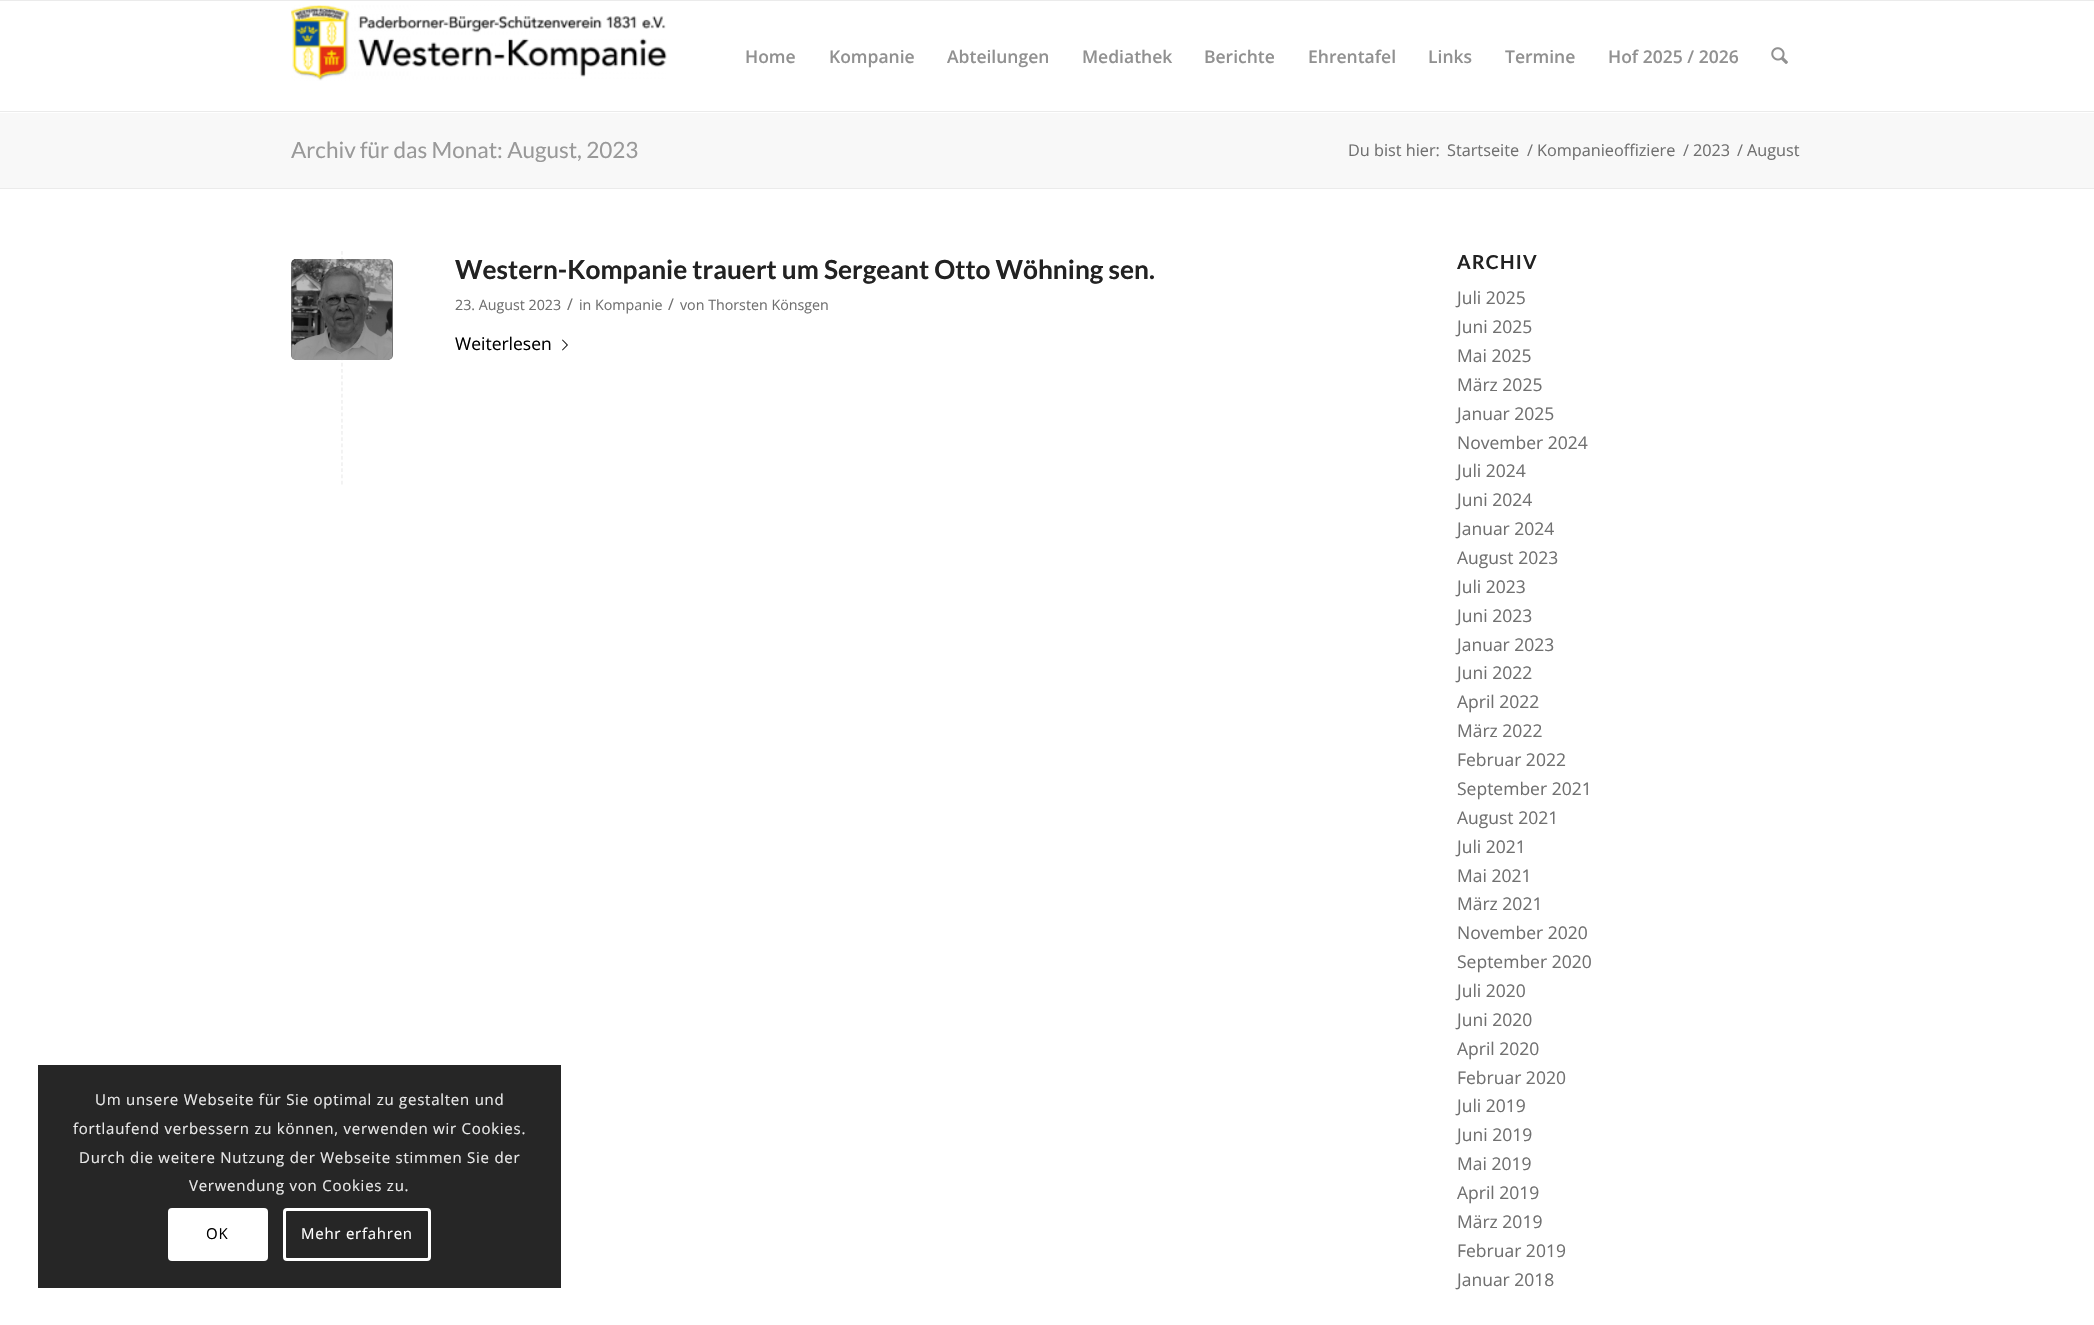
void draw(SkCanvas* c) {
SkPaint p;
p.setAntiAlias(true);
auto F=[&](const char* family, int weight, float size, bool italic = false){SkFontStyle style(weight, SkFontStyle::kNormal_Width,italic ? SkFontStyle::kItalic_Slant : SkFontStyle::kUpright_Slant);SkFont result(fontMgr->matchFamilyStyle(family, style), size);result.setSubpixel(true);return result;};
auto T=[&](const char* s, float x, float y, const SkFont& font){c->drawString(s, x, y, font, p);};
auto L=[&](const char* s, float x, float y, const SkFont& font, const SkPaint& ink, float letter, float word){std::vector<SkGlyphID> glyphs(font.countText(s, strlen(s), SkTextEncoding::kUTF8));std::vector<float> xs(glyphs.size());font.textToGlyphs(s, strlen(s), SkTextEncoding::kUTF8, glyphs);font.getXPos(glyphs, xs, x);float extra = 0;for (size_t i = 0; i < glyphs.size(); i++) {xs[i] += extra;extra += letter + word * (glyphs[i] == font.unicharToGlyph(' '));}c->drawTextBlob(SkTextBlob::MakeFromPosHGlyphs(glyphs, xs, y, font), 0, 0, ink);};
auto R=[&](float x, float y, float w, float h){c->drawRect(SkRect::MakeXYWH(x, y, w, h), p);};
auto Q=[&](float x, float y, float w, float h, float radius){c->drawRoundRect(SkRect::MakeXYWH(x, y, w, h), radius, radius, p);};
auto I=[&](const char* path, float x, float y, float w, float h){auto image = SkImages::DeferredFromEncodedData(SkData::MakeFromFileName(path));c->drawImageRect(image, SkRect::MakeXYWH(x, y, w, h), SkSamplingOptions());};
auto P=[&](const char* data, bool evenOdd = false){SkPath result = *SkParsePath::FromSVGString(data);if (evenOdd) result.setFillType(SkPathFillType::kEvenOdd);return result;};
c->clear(0xffffffff);
p.setColor(0xffebebeb);
R(0,0,2094,1);
R(0,111,2094,1);
I("1.png",291,5,376,76);
auto f1 = F("Open Sans",600,17.5);
p.setColor(0xff919191);
T("Home",745,63,f1);
T("Kompanie",829,63,f1);
T("Abteilungen",947,63,f1);
T("Mediathek",1082,63,f1);
T("Berichte",1204,63,f1);
T("Ehrentafel",1308,63,f1);
T("Links",1428,63,f1);
T("Termine",1505,63,f1);
T("Hof 2025 / 2026",1608,63,f1);
I("2.png",1771,47,17,17);
p.setColor(0xfff8f8f8);
R(0,113,2094,75);
auto f2 = F("Lato",400,22.5);
p.setColor(0xff999999);
T("Archiv für das Monat: August, 2023",291,158,f2);
auto f3 = F("Open Sans",400,16.25);
p.setColor(0xff707070);
T("Du bist hier:",1348,156,f3);
T("Startseite",1447,156,f3);
T("/",1527,156,f3);
T("Kompanieoffiziere",1537,156,f3);
T("/",1683,156,f3);
T("2023",1693,156,f3);
T("/",1737,156,f3);
T("August",1747,156,f3);
p.setColor(0xffebebeb);
R(0,188,2094,1);
p.setStroke(true);
p.setStrokeWidth(1.2);
p.setPathEffect(SkDashPathEffect::Make({{3.75f,2.46f}}, 0));
c->drawPath(P("M342 251v234"),p);
p.setPathEffect(nullptr);
p.setStroke(false);
p.setColor(0xff707070);
Q(291,259,102,101,5);
I("3.png",291,259,102,101);
auto f4 = F("Lato",700,26.25);
p.setColor(0xff222222);
T("Western-Kompanie trauert um Sergeant Otto Wöhning sen.",455,279,f4);
auto f5 = F("Open Sans",400,14.25);
p.setColor(0xff707070);
T("23. August 2023",455,310,f5);
auto f6 = F("Open Sans",400,16);
T("/",567,310,f6);
T("in Kompanie",579,310,f5);
T("/",668,310,f6);
T("von Thorsten Könsgen",680,310,f5);
auto f7 = F("Open Sans",400,17.5);
p.setColor(0xff000000);
T("Weiterlesen",455,350,f7);
I("4.png",562,339,6,12);
auto f8 = F("Lato",700,19.25);
p.setColor(0xff222222);
L("ARCHIV",1457,269,f8,p,1.25,0);
p.setColor(0xff707070);
T("Juli 2025",1457,304,f7);
T("Juni 2025",1457,333,f7);
T("Mai 2025",1457,362,f7);
T("März 2025",1457,391,f7);
T("Januar 2025",1457,420,f7);
T("November 2024",1457,449,f7);
T("Juli 2024",1457,477,f7);
T("Juni 2024",1457,506,f7);
T("Januar 2024",1457,535,f7);
T("August 2023",1457,564,f7);
T("Juli 2023",1457,593,f7);
T("Juni 2023",1457,622,f7);
T("Januar 2023",1457,651,f7);
T("Juni 2022",1457,679,f7);
T("April 2022",1457,708,f7);
T("März 2022",1457,737,f7);
T("Februar 2022",1457,766,f7);
T("September 2021",1457,795,f7);
T("August 2021",1457,824,f7);
T("Juli 2021",1457,853,f7);
T("Mai 2021",1457,882,f7);
T("März 2021",1457,910,f7);
T("November 2020",1457,939,f7);
T("September 2020",1457,968,f7);
T("Juli 2020",1457,997,f7);
T("Juni 2020",1457,1026,f7);
T("April 2020",1457,1055,f7);
T("Februar 2020",1457,1084,f7);
T("Juli 2019",1457,1112,f7);
T("Juni 2019",1457,1141,f7);
T("Mai 2019",1457,1170,f7);
T("April 2019",1457,1199,f7);
T("März 2019",1457,1228,f7);
T("Februar 2019",1457,1257,f7);
T("Januar 2018",1457,1286,f7);
p.setColor(0xff262626);
R(38,1065,523,223);
auto f9 = F("Open Sans",400,15);
p.setColor(0xffe9e9e9);
L("Um unsere Webseite für Sie optimal zu gestalten und",95,1105,f9,p,.75,0);
L("fortlaufend verbessern zu können, verwenden wir Cookies.",73,1134,f9,p,.75,0);
L("Durch die weitere Nutzung der Webseite stimmen Sie der",79,1163,f9,p,.75,0);
L("Verwendung von Cookies zu.",189,1191,f9,p,.75,0);
p.setColor(0xffffffff);
Q(168,1208,100,53,4);
p.setColor(0xff000000);
L("OK",206,1239,f9,p,.75,0);
p.setStroke(true);
p.setStrokeWidth(3);
p.setColor(0xffffffff);
c->drawRoundRect(SkRect::MakeXYWH(284.5,1209.5,145,50),2.5,2.5,p);
p.setStroke(false);
L("Mehr erfahren",301,1239,f9,p,.75,0);
}
